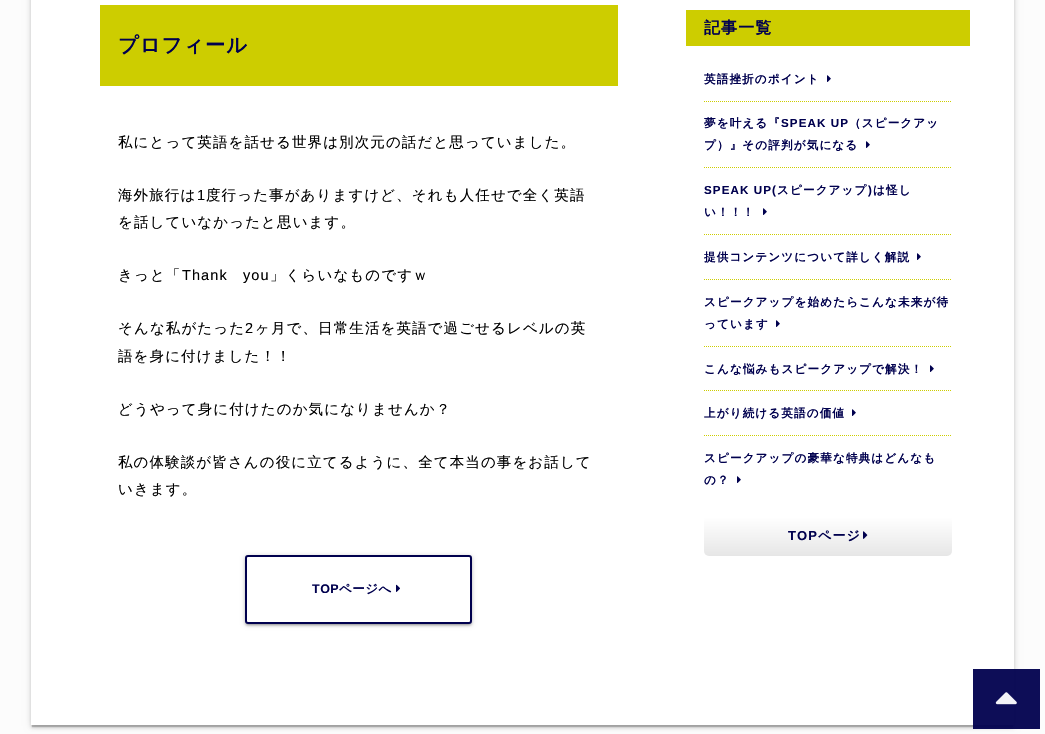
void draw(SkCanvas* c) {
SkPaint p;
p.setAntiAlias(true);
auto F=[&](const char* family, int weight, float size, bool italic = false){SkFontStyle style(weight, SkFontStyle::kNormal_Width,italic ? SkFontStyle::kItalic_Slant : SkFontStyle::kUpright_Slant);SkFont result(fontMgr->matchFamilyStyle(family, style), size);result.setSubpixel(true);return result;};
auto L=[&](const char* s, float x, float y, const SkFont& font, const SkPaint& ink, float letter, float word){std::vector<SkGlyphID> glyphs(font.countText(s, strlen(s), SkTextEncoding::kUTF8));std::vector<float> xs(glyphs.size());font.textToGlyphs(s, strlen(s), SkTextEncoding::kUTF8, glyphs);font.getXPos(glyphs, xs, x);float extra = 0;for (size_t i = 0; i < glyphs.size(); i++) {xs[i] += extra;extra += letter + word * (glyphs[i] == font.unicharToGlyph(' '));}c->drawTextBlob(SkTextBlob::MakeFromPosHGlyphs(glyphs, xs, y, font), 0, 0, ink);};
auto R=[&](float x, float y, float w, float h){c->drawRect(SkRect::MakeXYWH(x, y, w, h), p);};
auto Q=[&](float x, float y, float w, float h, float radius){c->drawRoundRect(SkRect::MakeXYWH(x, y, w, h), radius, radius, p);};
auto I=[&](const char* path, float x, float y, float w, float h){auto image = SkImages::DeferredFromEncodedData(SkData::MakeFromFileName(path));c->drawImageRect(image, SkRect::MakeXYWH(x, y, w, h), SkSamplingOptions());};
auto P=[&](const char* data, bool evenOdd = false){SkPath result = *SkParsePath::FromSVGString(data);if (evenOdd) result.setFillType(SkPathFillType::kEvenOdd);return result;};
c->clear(0xfffcfcfc);
p.setColor(0x33000000);
p.setMaskFilter(SkMaskFilter::MakeBlur(kNormal_SkBlurStyle, .5));
c->drawRect(SkRect::MakeXYWH(32,-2,981,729),p);
p.setMaskFilter(nullptr);
p.setColor(0x1f000000);
p.setMaskFilter(SkMaskFilter::MakeBlur(kNormal_SkBlurStyle, 3.5));
c->drawRect(SkRect::MakeXYWH(31,-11,983,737),p);
p.setMaskFilter(nullptr);
p.setColor(0x24000000);
p.setMaskFilter(SkMaskFilter::MakeBlur(kNormal_SkBlurStyle, 1.5));
c->drawRect(SkRect::MakeXYWH(31,-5,983,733),p);
p.setMaskFilter(nullptr);
p.setColor(0xffffffff);
R(31,0,983,725);
p.setColor(0xffcdcd00);
R(100,5,518,81);
auto f1 = F("WenQuanYi Zen Hei",700,20.25);
p.setColor(0xff00004e);
L("プロフィール",118,52,f1,p,1,0);
auto f2 = F("WenQuanYi Zen Hei",500,14.5);
p.setColor(0xff000000);
L("私にとって英語を話せる世界は別次元の話だと思っていました。",118,147,f2,p,1.1,0);
L("海外旅行は",118,200,f2,p,1.1,0);
auto f3 = F("Liberation Sans",400,14.5);
L("1",197,200,f3,p,1.1,0);
L("度行った事がありますけど、それも人任せで全く英語",206,200,f2,p,1.1,0);
L("を話していなかったと思います。",118,227,f2,p,1.1,0);
L("きっと「",118,280,f2,p,1.1,0);
L("Thank",182,280,f3,p,1.1,0);
L("you",243,280,f3,p,1.1,0);
L("」くらいなものですｗ",270,280,f2,p,1.1,0);
L("そんな私がたった",118,333,f2,p,1.1,0);
L("2",245,333,f3,p,1.1,0);
L("ヶ月で、日常生活を英語で過ごせるレベルの英",255,333,f2,p,1.1,0);
L("語を身に付けました！！",118,361,f2,p,1.1,0);
L("どうやって身に付けたのか気になりませんか？",118,414,f2,p,1.1,0);
L("私の体験談が皆さんの役に立てるように、全て本当の事をお話して",118,467,f2,p,1.1,0);
L("いきます。",118,494,f2,p,1.1,0);
p.setColor(0x33000000);
p.setMaskFilter(SkMaskFilter::MakeBlur(kNormal_SkBlurStyle, 2.5));
c->drawRoundRect(SkRect::MakeXYWH(245,556,227,69),3,3,p);
p.setMaskFilter(nullptr);
p.setColor(0x1f000000);
p.setMaskFilter(SkMaskFilter::MakeBlur(kNormal_SkBlurStyle, .5));
c->drawRoundRect(SkRect::MakeXYWH(247,560,223,65),1,1,p);
p.setMaskFilter(nullptr);
p.setColor(0x24000000);
p.setMaskFilter(SkMaskFilter::MakeBlur(kNormal_SkBlurStyle, 1));
c->drawRoundRect(SkRect::MakeXYWH(245,557,227,69),3,3,p);
p.setMaskFilter(nullptr);
p.setColor(0xffffffff);
c->drawRoundRect(SkRect::MakeXYWH(246,556,225,67),2,2,p);
p.setStroke(true);
p.setStrokeWidth(2);
p.setColor(0xff00004e);
c->drawRoundRect(SkRect::MakeXYWH(246,556,225,67),2,2,p);
auto f4 = F("Liberation Sans",700,12.5);
p.setStroke(false);
L("TOP",312,593,f4,p,.5,0);
auto f5 = F("WenQuanYi Zen Hei",700,12.5);
L("ページへ",339,593,f5,p,.5,0);
I("1.png",396,584,4,8);
p.setColor(0xffcdcd00);
R(686,10,284,36);
auto f6 = F("WenQuanYi Zen Hei",700,16);
p.setColor(0xff00004e);
L("記事一覧",704,33,f6,p,1.1,0);
p.setStroke(true);
p.setStrokeWidth(1);
p.setColor(0xffcdcd00);
p.setPathEffect(SkDashPathEffect::Make({{1,1}}, 0));
c->drawPath(P("M704 101.5h248"),p);
p.setPathEffect(nullptr);
auto f7 = F("WenQuanYi Zen Hei",700,11.6);
p.setStroke(false);
p.setColor(0xff00004e);
L("英語挫折のポイント",704,83,f7,p,1.1,0);
I("2.png",827,75,4,7);
p.setStroke(true);
p.setColor(0xffcdcd00);
p.setPathEffect(SkDashPathEffect::Make({{1,1}}, 0));
c->drawPath(P("M704 167.5h248"),p);
p.setPathEffect(nullptr);
p.setStroke(false);
p.setColor(0xff00004e);
L("夢を叶える『",704,127,f7,p,1.1,0);
auto f8 = F("Liberation Sans",700,11.6);
L("SPEAK UP",781,127,f8,p,1.1,0);
L("（スピークアッ",849,127,f7,p,1.1,0);
L("プ）』その評判が気になる",704,149,f7,p,1.1,0);
I("2.png",866,141,4,7);
p.setStroke(true);
p.setColor(0xffcdcd00);
p.setPathEffect(SkDashPathEffect::Make({{1,1}}, 0));
c->drawPath(P("M704 234.5h248"),p);
p.setPathEffect(nullptr);
p.setStroke(false);
p.setColor(0xff00004e);
L("SPEAK UP(",704,194,f8,p,1.1,0);
L("スピークアップ",777,194,f7,p,1.1,0);
L(")",868,194,f8,p,1.1,0);
L("は怪し",873,194,f7,p,1.1,0);
L("い！！！",704,216,f7,p,1.1,0);
I("2.png",763,208,4,7);
p.setStroke(true);
p.setColor(0xffcdcd00);
p.setPathEffect(SkDashPathEffect::Make({{1,1}}, 0));
c->drawPath(P("M704 279.5h248"),p);
p.setPathEffect(nullptr);
p.setStroke(false);
p.setColor(0xff00004e);
L("提供コンテンツについて詳しく解説",704,261,f7,p,1.1,0);
I("2.png",917,253,4,7);
p.setStroke(true);
p.setColor(0xffcdcd00);
p.setPathEffect(SkDashPathEffect::Make({{1,1}}, 0));
c->drawPath(P("M704 346.5h248"),p);
p.setPathEffect(nullptr);
p.setStroke(false);
p.setColor(0xff00004e);
L("スピークアップを始めたらこんな未来が待",704,306,f7,p,1.1,0);
L("っています",704,328,f7,p,1.1,0);
I("2.png",776,320,4,7);
p.setStroke(true);
p.setColor(0xffcdcd00);
p.setPathEffect(SkDashPathEffect::Make({{1,1}}, 0));
c->drawPath(P("M704 390.5h248"),p);
p.setPathEffect(nullptr);
p.setStroke(false);
p.setColor(0xff00004e);
L("こんな悩みもスピークアップで解決！",704,373,f7,p,1.1,0);
I("2.png",930,365,4,7);
p.setStroke(true);
p.setColor(0xffcdcd00);
p.setPathEffect(SkDashPathEffect::Make({{1,1}}, 0));
c->drawPath(P("M704 435.5h248"),p);
p.setPathEffect(nullptr);
p.setStroke(false);
p.setColor(0xff00004e);
L("上がり続ける英語の価値",704,417,f7,p,1.1,0);
I("2.png",852,409,4,7);
L("スピークアップの豪華な特典はどんなも",704,462,f7,p,1.1,0);
L("の？",704,484,f7,p,1.1,0);
I("2.png",737,476,4,7);
{
const SkColor colors[] = {0xffffffff,0xffe6e6e6};
const float stops[] = {0,1};
const SkPoint ends[] = {{828,517}, {828,556}};
p.setShader(SkGradientShader::MakeLinear(ends, colors, stops, 2, SkTileMode::kClamp));
p.setAlpha(255);
}
Q(704,517,248,39,5);
auto f9 = F("Liberation Sans",700,13);
p.setShader(nullptr);
p.setColor(0xff00004e);
L("TOP",788,540,f9,p,1.1,0);
auto f10 = F("WenQuanYi Zen Hei",700,13);
L("ページ",818,540,f10,p,1.1,0);
I("3.png",863,531,5,8);
p.setColor(0xf200004e);
R(973,669,67,60);
I("4.png",995,692,22,13);
}
